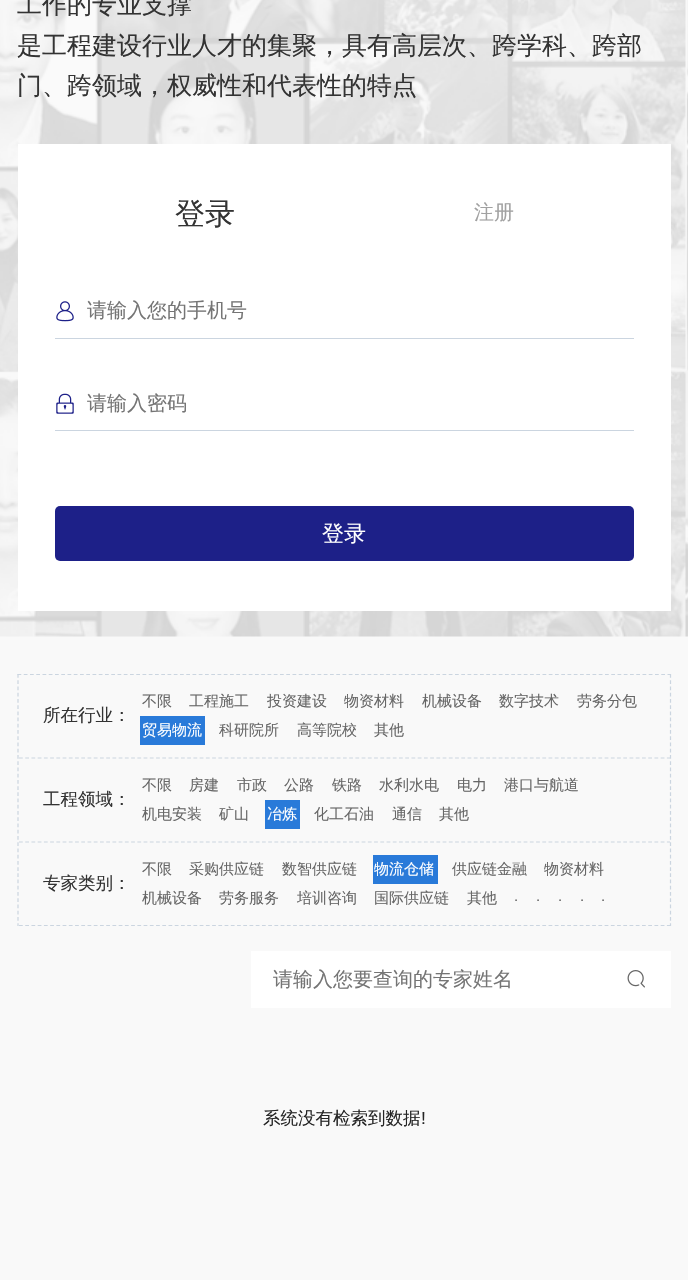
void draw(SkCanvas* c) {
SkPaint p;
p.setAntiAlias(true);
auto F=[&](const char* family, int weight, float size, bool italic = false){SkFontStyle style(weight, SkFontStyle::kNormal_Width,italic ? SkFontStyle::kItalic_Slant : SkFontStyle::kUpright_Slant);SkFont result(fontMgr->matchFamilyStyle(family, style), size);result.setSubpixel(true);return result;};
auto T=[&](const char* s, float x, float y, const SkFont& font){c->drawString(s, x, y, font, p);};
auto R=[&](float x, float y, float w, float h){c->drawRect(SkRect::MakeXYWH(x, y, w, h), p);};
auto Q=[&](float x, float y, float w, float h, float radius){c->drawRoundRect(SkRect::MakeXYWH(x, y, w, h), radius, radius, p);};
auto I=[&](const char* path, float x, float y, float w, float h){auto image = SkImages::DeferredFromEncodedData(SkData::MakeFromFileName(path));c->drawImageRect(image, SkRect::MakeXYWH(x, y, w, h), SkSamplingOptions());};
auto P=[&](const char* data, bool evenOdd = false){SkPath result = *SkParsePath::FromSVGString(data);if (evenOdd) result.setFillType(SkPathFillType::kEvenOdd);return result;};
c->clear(0xfff9f9f9);
I("1.png",0,0,688,637);
auto f1 = F("WenQuanYi Zen Hei",500,25);
p.setColor(0xff333333);
T("工作的专业支撑",17,13,f1);
T("是工程建设行业人才的集聚，具有高层次、跨学科、跨部",17,54,f1);
T("门、跨领域，权威性和代表性的特点",17,94,f1);
p.setColor(0xffffffff);
R(18,144,653,467);
auto f2 = F("WenQuanYi Zen Hei",500,30);
p.setColor(0xff333333);
T("登录",175,224,f2);
auto f3 = F("WenQuanYi Zen Hei",500,20);
p.setColor(0xffa1a1a1);
T("注册",474,219,f3);
p.setColor(0xffcbd5e0);
R(55,338,579,1);
I("2.png",56,301,18,21);
p.setColor(0xff757575);
T("请输入您的手机号",87,317,f3);
p.setColor(0xffcbd5e0);
R(55,430,579,1);
I("3.png",56,393,18,21);
p.setColor(0xff757575);
T("请输入密码",87,410,f3);
p.setColor(0xff1d2088);
Q(55,506,579,55,5);
auto f4 = F("WenQuanYi Zen Hei",500,22);
p.setColor(0xffffffff);
T("登录",322,541,f4);
p.setStroke(true);
p.setStrokeWidth(1.2);
p.setColor(0xffcbd5e0);
p.setPathEffect(SkDashPathEffect::Make({{3.75f,2.5f}}, 0));
c->drawPath(P("M17.5 674.5h653.5"),p);
p.setPathEffect(nullptr);
p.setPathEffect(SkDashPathEffect::Make({{3.75f,2.48f}}, 0));
c->drawPath(P("M670.5 674v252"),p);
p.setPathEffect(nullptr);
p.setPathEffect(SkDashPathEffect::Make({{3.75f,2.48f}}, 0));
c->drawPath(P("M18 674v252"),p);
p.setPathEffect(nullptr);
p.setPathEffect(SkDashPathEffect::Make({{3.75f,2.48f}}, 0));
c->drawPath(P("M19 758h651"),p);
p.setPathEffect(nullptr);
auto f5 = F("WenQuanYi Zen Hei",500,17.5);
p.setStroke(false);
p.setColor(0xff333333);
T("所在行业：",43,721,f5);
auto f6 = F("WenQuanYi Zen Hei",500,15);
p.setColor(0xff666666);
T("不限",142,706,f6);
T("工程施工",189,706,f6);
T("投资建设",267,706,f6);
T("物资材料",344,706,f6);
T("机械设备",422,706,f6);
T("数字技术",499,706,f6);
T("劳务分包",577,706,f6);
p.setColor(0xff297ad9);
R(140,716,65,29);
p.setColor(0xffffffff);
T("贸易物流",142,735,f6);
p.setColor(0xff666666);
T("科研院所",219,735,f6);
T("高等院校",297,735,f6);
T("其他",374,735,f6);
p.setStroke(true);
p.setColor(0xffcbd5e0);
p.setPathEffect(SkDashPathEffect::Make({{3.75f,2.48f}}, 0));
c->drawPath(P("M19 842h651"),p);
p.setPathEffect(nullptr);
p.setStroke(false);
p.setColor(0xff333333);
T("工程领域：",43,805,f5);
p.setColor(0xff666666);
T("不限",142,790,f6);
T("房建",189,790,f6);
T("市政",237,790,f6);
T("公路",284,790,f6);
T("铁路",332,790,f6);
T("水利水电",379,790,f6);
T("电力",457,790,f6);
T("港口与航道",504,790,f6);
T("机电安装",142,819,f6);
T("矿山",219,819,f6);
p.setColor(0xff297ad9);
R(265,800,35,29);
p.setColor(0xffffffff);
T("冶炼",267,819,f6);
p.setColor(0xff666666);
T("化工石油",314,819,f6);
T("通信",392,819,f6);
T("其他",439,819,f6);
p.setStroke(true);
p.setColor(0xffcbd5e0);
p.setPathEffect(SkDashPathEffect::Make({{3.75f,2.48f}}, 0));
c->drawPath(P("M19 925.5h651"),p);
p.setPathEffect(nullptr);
p.setStroke(false);
p.setColor(0xff333333);
T("专家类别：",43,889,f5);
p.setColor(0xff666666);
T("不限",142,874,f6);
T("采购供应链",189,874,f6);
T("数智供应链",282,874,f6);
p.setColor(0xff297ad9);
R(373,855,65,29);
p.setColor(0xffffffff);
T("物流仓储",374,874,f6);
p.setColor(0xff666666);
T("供应链金融",452,874,f6);
T("物资材料",544,874,f6);
T("机械设备",142,903,f6);
T("劳务服务",219,903,f6);
T("培训咨询",297,903,f6);
T("国际供应链",374,903,f6);
T("其他",467,903,f6);
auto f7 = F("Liberation Sans",400,15);
T(".",514,901,f7);
T(".",536,901,f7);
T(".",558,901,f7);
T(".",580,901,f7);
T(".",601,901,f7);
p.setColor(0xffffffff);
R(251,951,420,57);
p.setColor(0xff757575);
T("请输入您要查询的专家姓名",273,986,f3);
I("4.png",627,970,18,18);
p.setColor(0xff252525);
T("系统没有检索到数据",263,1124,f5);
auto f8 = F("Liberation Sans",400,17.5);
T("!",421,1124,f8);
}
